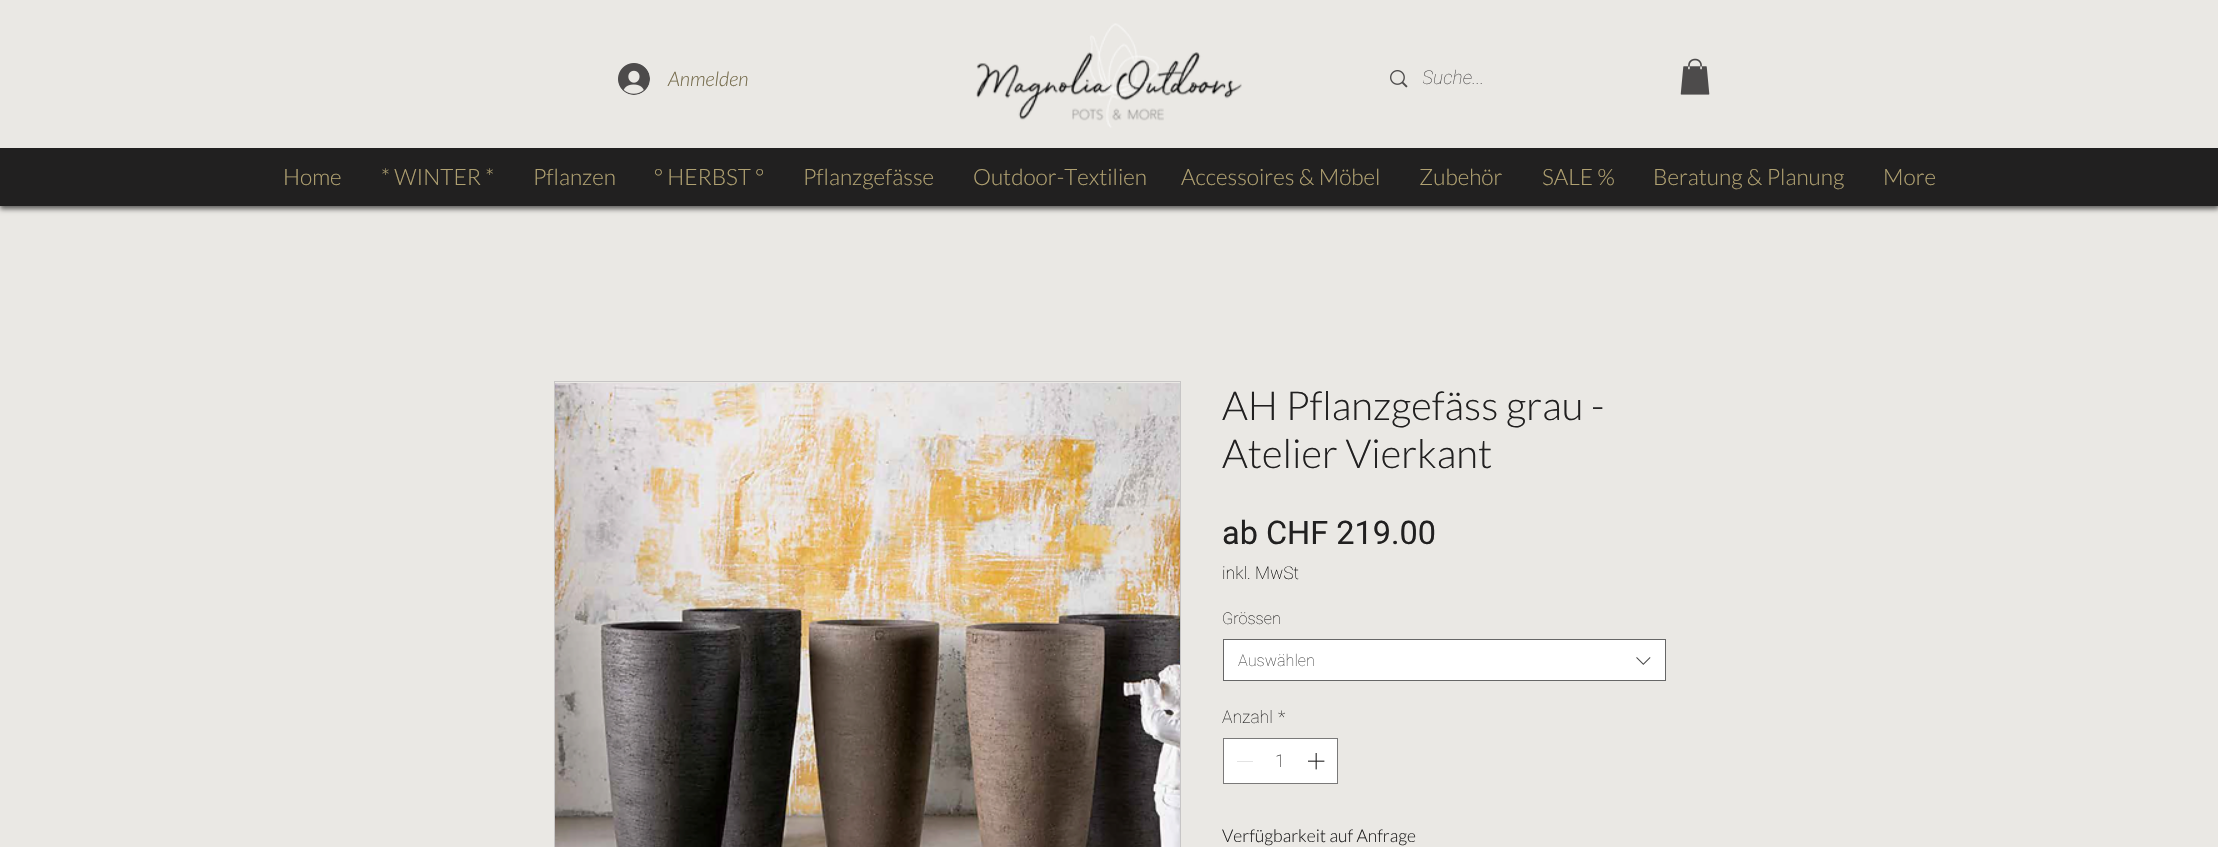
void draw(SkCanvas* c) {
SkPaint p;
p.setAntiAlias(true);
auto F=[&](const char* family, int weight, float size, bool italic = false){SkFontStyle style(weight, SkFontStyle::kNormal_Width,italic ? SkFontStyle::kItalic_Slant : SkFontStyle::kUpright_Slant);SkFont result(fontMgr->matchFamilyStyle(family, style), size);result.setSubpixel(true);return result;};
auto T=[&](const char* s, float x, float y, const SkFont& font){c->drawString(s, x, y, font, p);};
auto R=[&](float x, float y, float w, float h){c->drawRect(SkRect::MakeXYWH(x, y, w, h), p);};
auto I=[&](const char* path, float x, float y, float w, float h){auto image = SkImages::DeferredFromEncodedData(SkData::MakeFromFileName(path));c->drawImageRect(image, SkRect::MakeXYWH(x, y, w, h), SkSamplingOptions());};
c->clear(0xffeae8e4);
p.setColor(0x99000000);
p.setMaskFilter(SkMaskFilter::MakeBlur(kNormal_SkBlurStyle, 2.5));
c->drawRect(SkRect::MakeXYWH(0,3,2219,206),p);
p.setMaskFilter(nullptr);
p.setColor(0xff212020);
R(0,148,2218,58);
p.setColor(0xffeae8e4);
R(0,0,2218,148);
I("1.png",618,63,32,32);
auto f1 = F("Lato",300,20,true);
p.setColor(0xff756b4b);
T("Anmelden",668,86,f1);
I("2.png",976,23,266,105);
I("3.png",1390,70,18,18);
c->save();
c->clipRect(SkRect::MakeXYWH(1423,66,190,23));
auto f2 = F("Roboto",100,19,true);
p.setColor(0xff4d4b4b);
T("Suche...",1422,84,f2);
c->restore();
I("4.png",1680,58,30,37);
auto f3 = F("Lato",300,22.5);
p.setColor(0xffb0a171);
T("Home",283,185,f3);
T("* WINTER *",381,185,f3);
T("Pflanzen",533,185,f3);
T("° HERBST °",654,185,f3);
T("Pflanzgefässe",803,185,f3);
T("Outdoor-Textilien",973,185,f3);
T("Accessoires & Möbel",1181,185,f3);
T("Zubehör",1419,185,f3);
T("SALE %",1542,185,f3);
T("Beratung & Planung",1653,185,f3);
T("More",1883,185,f3);
p.setStroke(true);
p.setStrokeWidth(1);
p.setColor(0xffc7c5c5);
c->drawRect(SkRect::MakeXYWH(554.5,381.5,626,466),p);
I("5.png",555,383,625,464);
auto f4 = F("Lato",300,40);
p.setStroke(false);
p.setColor(0xff212020);
T("AH Pflanzgefäss grau -",1222,420,f4);
T("Atelier Vierkant",1222,468,f4);
auto f5 = F("Roboto",400,32.5);
T("ab CHF 219.00",1222,544,f5);
auto f6 = F("Roboto",100,17.5);
p.setColor(0xff000000);
T("inkl. MwSt",1222,579,f6);
auto f7 = F("Roboto",100,16.25);
p.setColor(0xff212020);
T("Grössen",1222,624,f7);
p.setColor(0xffffffff);
c->drawRect(SkRect::MakeXYWH(1223.5,639.5,442,41),p);
p.setStroke(true);
p.setColor(0xff666666);
c->drawRect(SkRect::MakeXYWH(1223.5,639.5,442,41),p);
p.setStroke(false);
p.setColor(0xff444444);
T("Auswählen",1238,666,f7);
I("6.png",1636,657,15,8);
p.setColor(0xff212020);
T("Anzahl",1222,723,f6);
T("*",1278,723,f6);
p.setColor(0xffffffff);
c->drawRect(SkRect::MakeXYWH(1223.5,738.5,114,45),p);
p.setStroke(true);
p.setColor(0xff7a7979);
c->drawRect(SkRect::MakeXYWH(1223.5,738.5,114,45),p);
p.setStroke(false);
p.setColor(0xffe3e3e3);
R(1237,761,16,1);
p.setColor(0xff212020);
T("1",1275,767,f6);
I("7.png",1308,753,17,17);
auto f8 = F("Lato",300,17.5);
T("Verfügbarkeit auf Anfrage",1222,842,f8);
}
